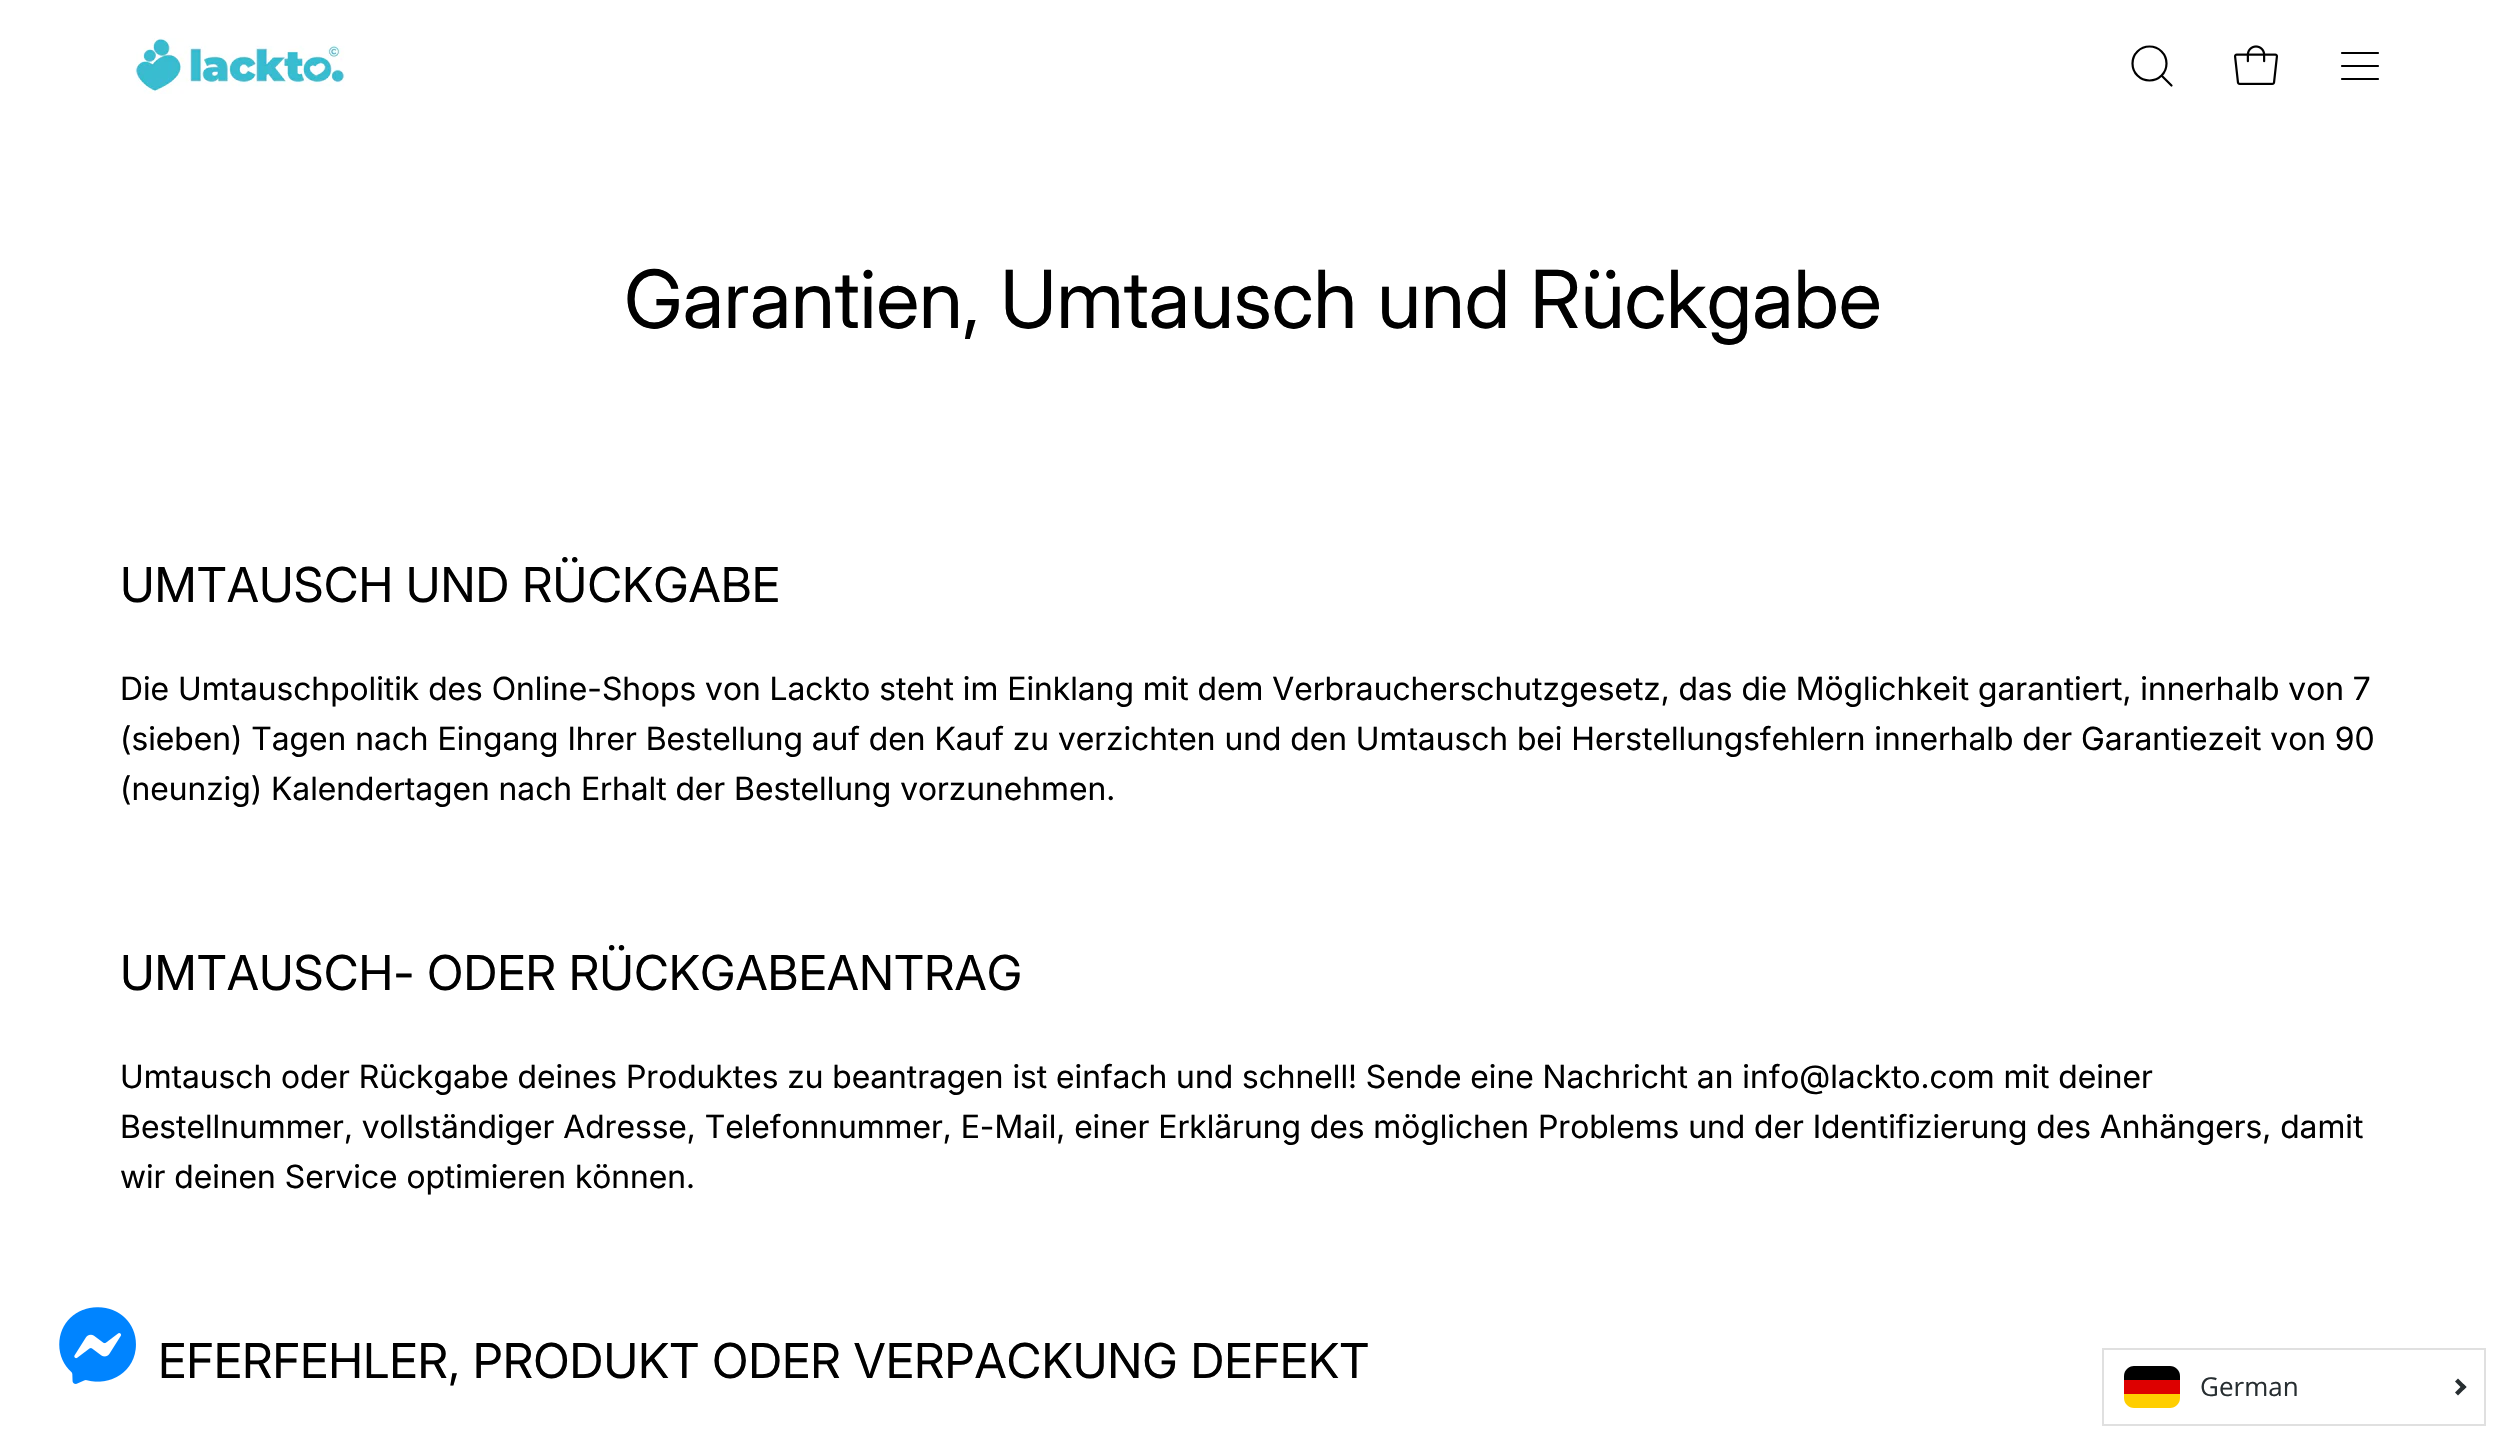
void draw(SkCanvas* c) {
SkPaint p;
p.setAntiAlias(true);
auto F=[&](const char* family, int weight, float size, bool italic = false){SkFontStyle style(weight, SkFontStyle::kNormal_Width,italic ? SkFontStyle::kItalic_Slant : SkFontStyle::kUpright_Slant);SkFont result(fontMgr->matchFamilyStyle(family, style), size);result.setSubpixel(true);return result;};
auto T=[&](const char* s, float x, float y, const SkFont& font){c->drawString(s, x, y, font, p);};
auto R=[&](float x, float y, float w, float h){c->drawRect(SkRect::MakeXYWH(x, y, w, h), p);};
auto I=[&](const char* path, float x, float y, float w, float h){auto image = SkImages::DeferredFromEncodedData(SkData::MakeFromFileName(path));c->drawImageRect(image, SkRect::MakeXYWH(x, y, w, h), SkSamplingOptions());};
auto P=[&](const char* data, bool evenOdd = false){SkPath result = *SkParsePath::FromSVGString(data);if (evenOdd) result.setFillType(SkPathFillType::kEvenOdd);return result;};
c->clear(0xffffffff);
I("1.png",135,38,210,56);
p.setStroke(true);
p.setStrokeWidth(2.2);
p.setStrokeCap(SkPaint::kRound_Cap);
p.setStrokeJoin(SkPaint::kRound_Join);
p.setColor(0xff000000);
c->drawPath(P("M2149.5 80.5c9.5 0 17-7.5 17-17c0-9.5-7.5-17-17-17c-9.5 0-17 7.5-17 17c0 9.5 7.5 17 17 17zm12-5l10 10"),p);
I("2.png",2234,45,44,40);
c->drawPath(P("M2342 66h36m-36-13h36m-36 26h36"),p);
I("3.png",59,1307,77,77);
auto f1 = F("Inter",400,80);
p.setStroke(false);
T("Garantien, Umtausch und Rückgabe",624,328,f1);
auto f2 = F("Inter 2",400,48);
T("UMTAUSCH UND RÜCKGABE",120,602,f2);
auto f3 = F("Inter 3",400,32);
T("Die Umtauschpolitik des Online-Shops von Lackto steht im Einklang mit dem Verbraucherschutzgesetz, das die Möglichkeit garantiert, innerhalb von 7",120,700,f3);
T("(sieben) Tagen nach Eingang Ihrer Bestellung auf den Kauf zu verzichten und den Umtausch bei Herstellungsfehlern innerhalb der Garantiezeit von 90",120,750,f3);
T("(neunzig) Kalendertagen nach Erhalt der Bestellung vorzunehmen.",120,800,f3);
T("UMTAUSCH- ODER RÜCKGABEANTRAG",120,990,f2);
T("Umtausch oder Rückgabe deines Produktes zu beantragen ist einfach und schnell! Sende eine Nachricht an info@lackto.com mit deiner",120,1088,f3);
T("Bestellnummer, vollständiger Adresse, Telefonnummer, E-Mail, einer Erklärung des möglichen Problems und der Identifizierung des Anhängers, damit",120,1138,f3);
T("wir deinen Service optimieren können.",120,1188,f3);
T("EFERFEHLER, PRODUKT ODER VERPACKUNG DEFEKT",158,1378,f2);
p.setStroke(true);
p.setStrokeWidth(2);
p.setStrokeCap(SkPaint::kButt_Cap);
p.setStrokeJoin(SkPaint::kMiter_Join);
p.setColor(0xffe0e0e0);
c->drawRect(SkRect::MakeXYWH(2103,1349,382,76),p);
p.setStroke(false);
p.setColor(0xffffce00);
c->drawPath(P("M2124 1394h56v4c0 5.5-4.5 10-10 10h-36c-5.5 0-10-4.5-10-10z"),p);
p.setColor(0xff000000);
c->drawPath(P("M2134 1366h36c5.5 0 10 4.5 10 10v4h-56v-4c0-5.5 4.5-10 10-10z"),p);
p.setColor(0xffdd0000);
R(2124,1380,56,14);
auto f4 = F("Open Sans",400,26);
p.setColor(0xff272e31);
T("German",2200,1396,f4);
c->drawPath(P("M2458 1378.5l8.5 8.5l-3 3l-8.5-8.5z"),p);
c->drawPath(P("M2463.5 1384l3 3l-8.5 8.5l-3-3z"),p);
}
